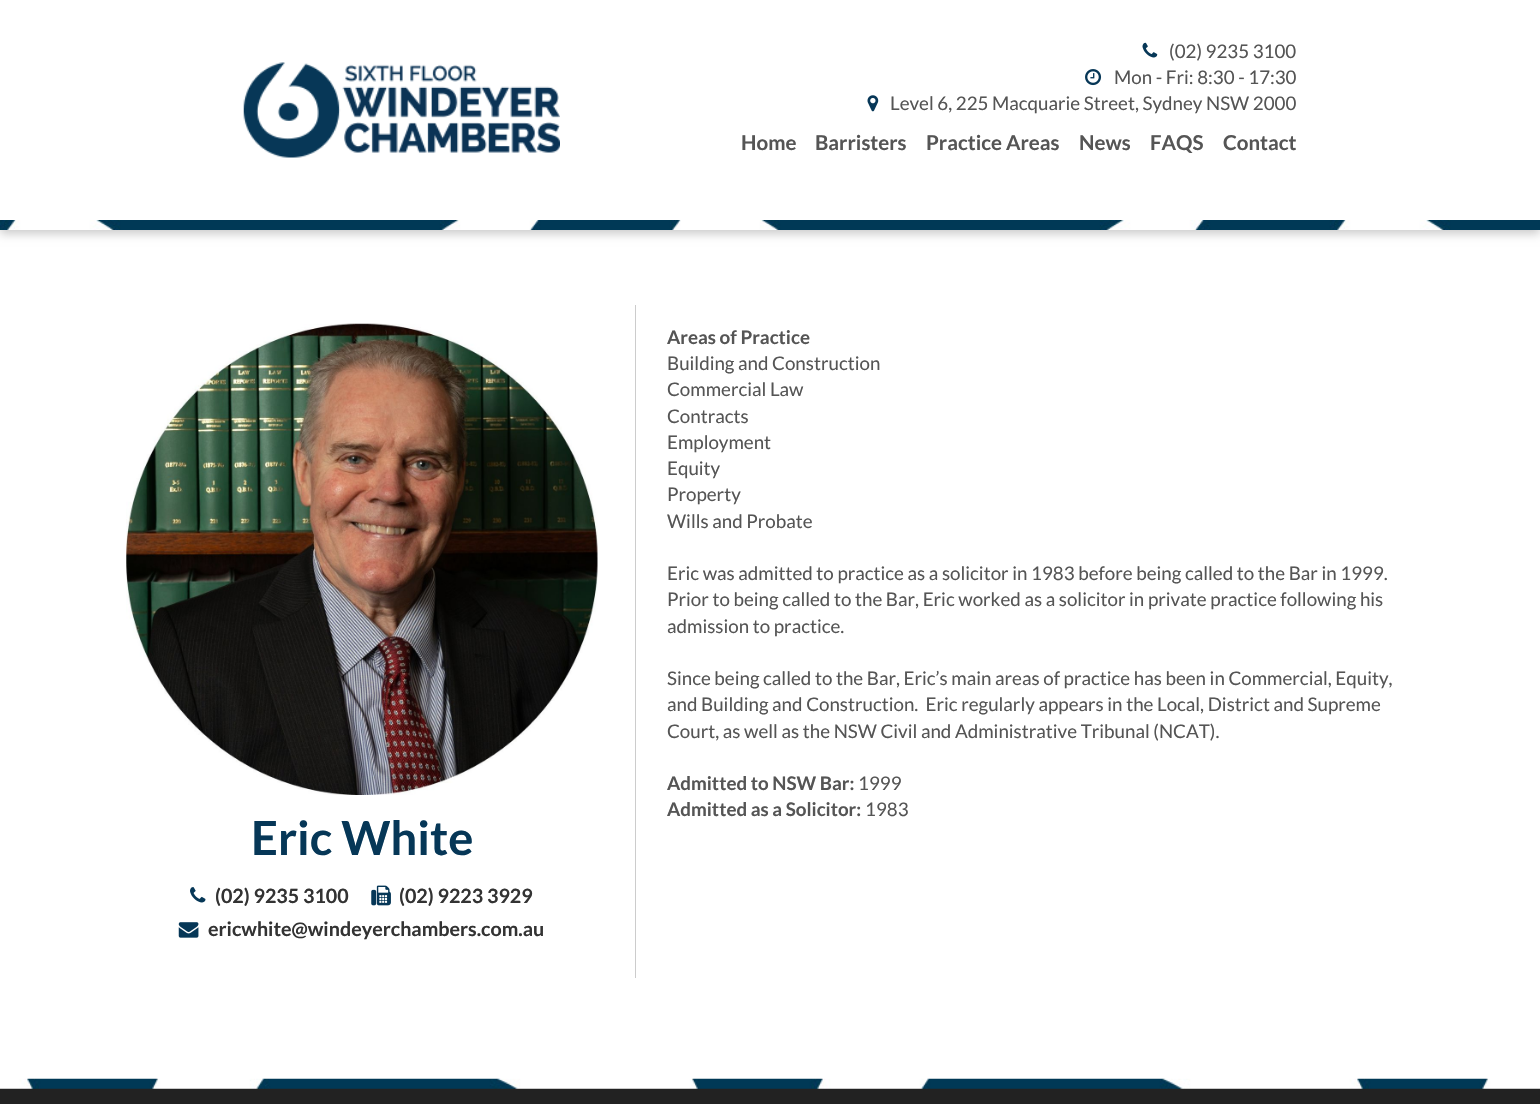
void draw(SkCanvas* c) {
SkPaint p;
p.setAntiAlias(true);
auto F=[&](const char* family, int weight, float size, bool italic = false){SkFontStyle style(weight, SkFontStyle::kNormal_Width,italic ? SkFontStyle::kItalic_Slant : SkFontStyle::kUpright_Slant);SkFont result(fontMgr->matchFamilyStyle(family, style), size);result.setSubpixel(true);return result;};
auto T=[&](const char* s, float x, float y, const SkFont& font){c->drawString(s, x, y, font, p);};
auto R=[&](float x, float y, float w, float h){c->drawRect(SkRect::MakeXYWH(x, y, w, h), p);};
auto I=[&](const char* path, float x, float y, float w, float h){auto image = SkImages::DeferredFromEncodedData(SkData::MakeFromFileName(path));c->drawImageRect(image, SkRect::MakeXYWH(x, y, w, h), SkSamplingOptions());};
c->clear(0xffffffff);
p.setColor(0x33000000);
p.setMaskFilter(SkMaskFilter::MakeBlur(kNormal_SkBlurStyle, 4.5));
c->drawRect(SkRect::MakeXYWH(0,4,1540,230),p);
p.setMaskFilter(nullptr);
p.setColor(0xffffffff);
R(0,0,1540,220);
I("1.png",243,62,317,96);
I("2.png",1142,42,16,16);
auto f1 = F("Lato",400,18.75);
p.setColor(0xff555555);
T("(02) 9235 3100",1169,58,f1);
I("3.png",1085,69,17,17);
T("Mon - Fri: 8:30 - 17:30",1114,84,f1);
I("4.png",867,95,12,17);
T("Level 6, 225 Macquarie Street, Sydney NSW 2000",890,110,f1);
auto f2 = F("Lato",700,20.5);
T("Home",741,150,f2);
T("Barristers",815,150,f2);
T("Practice Areas",926,150,f2);
T("News",1079,150,f2);
T("FAQS",1150,150,f2);
T("Contact",1223,150,f2);
I("5.png",0,220,1540,10);
auto f3 = F("Lato",700,18.75);
T("Areas of Practice",667,344,f3);
T("Building and Construction",667,370,f1);
T("Commercial Law",667,396,f1);
T("Contracts",667,423,f1);
T("Employment",667,449,f1);
T("Equity",667,475,f1);
T("Property",667,501,f1);
T("Wills and Probate",667,528,f1);
T("Eric was admitted to practice as a solicitor in 1983 before being called to the Bar in 1999.",667,580,f1);
T("Prior to being called to the Bar, Eric worked as a solicitor in private practice following his",667,606,f1);
T("admission to practice.",667,633,f1);
T("Since being called to the Bar, Eric’s main areas of practice has been in Commercial, Equity,",667,685,f1);
T("and Building and Construction.  Eric regularly appears in the Local, District and Supreme",667,711,f1);
T("Court, as well as the NSW Civil and Administrative Tribunal (NCAT).",667,738,f1);
T("Admitted to NSW Bar:",667,790,f3);
T("1999",858,790,f1);
T("Admitted as a Solicitor:",667,816,f3);
T("1983",865,816,f1);
p.setColor(0xffcccccc);
R(635,305,1,673);
I("6.png",126,323,472,472);
auto f4 = F("Lato",700,47);
p.setColor(0xff063757);
T("Eric White",251,855,f4);
I("7.png",190,887,16,16);
auto f5 = F("Lato",700,19.7);
p.setColor(0xff333333);
T("(02) 9235 3100",215,903,f5);
I("8.png",371,885,20,21);
T("(02) 9223 3929",399,903,f5);
I("9.png",178,922,21,16);
T("ericwhite@windeyerchambers.com.au",208,936,f5);
p.setColor(0xff222222);
R(0,1088,1540,16);
I("10.png",0,1078,1540,11);
}
